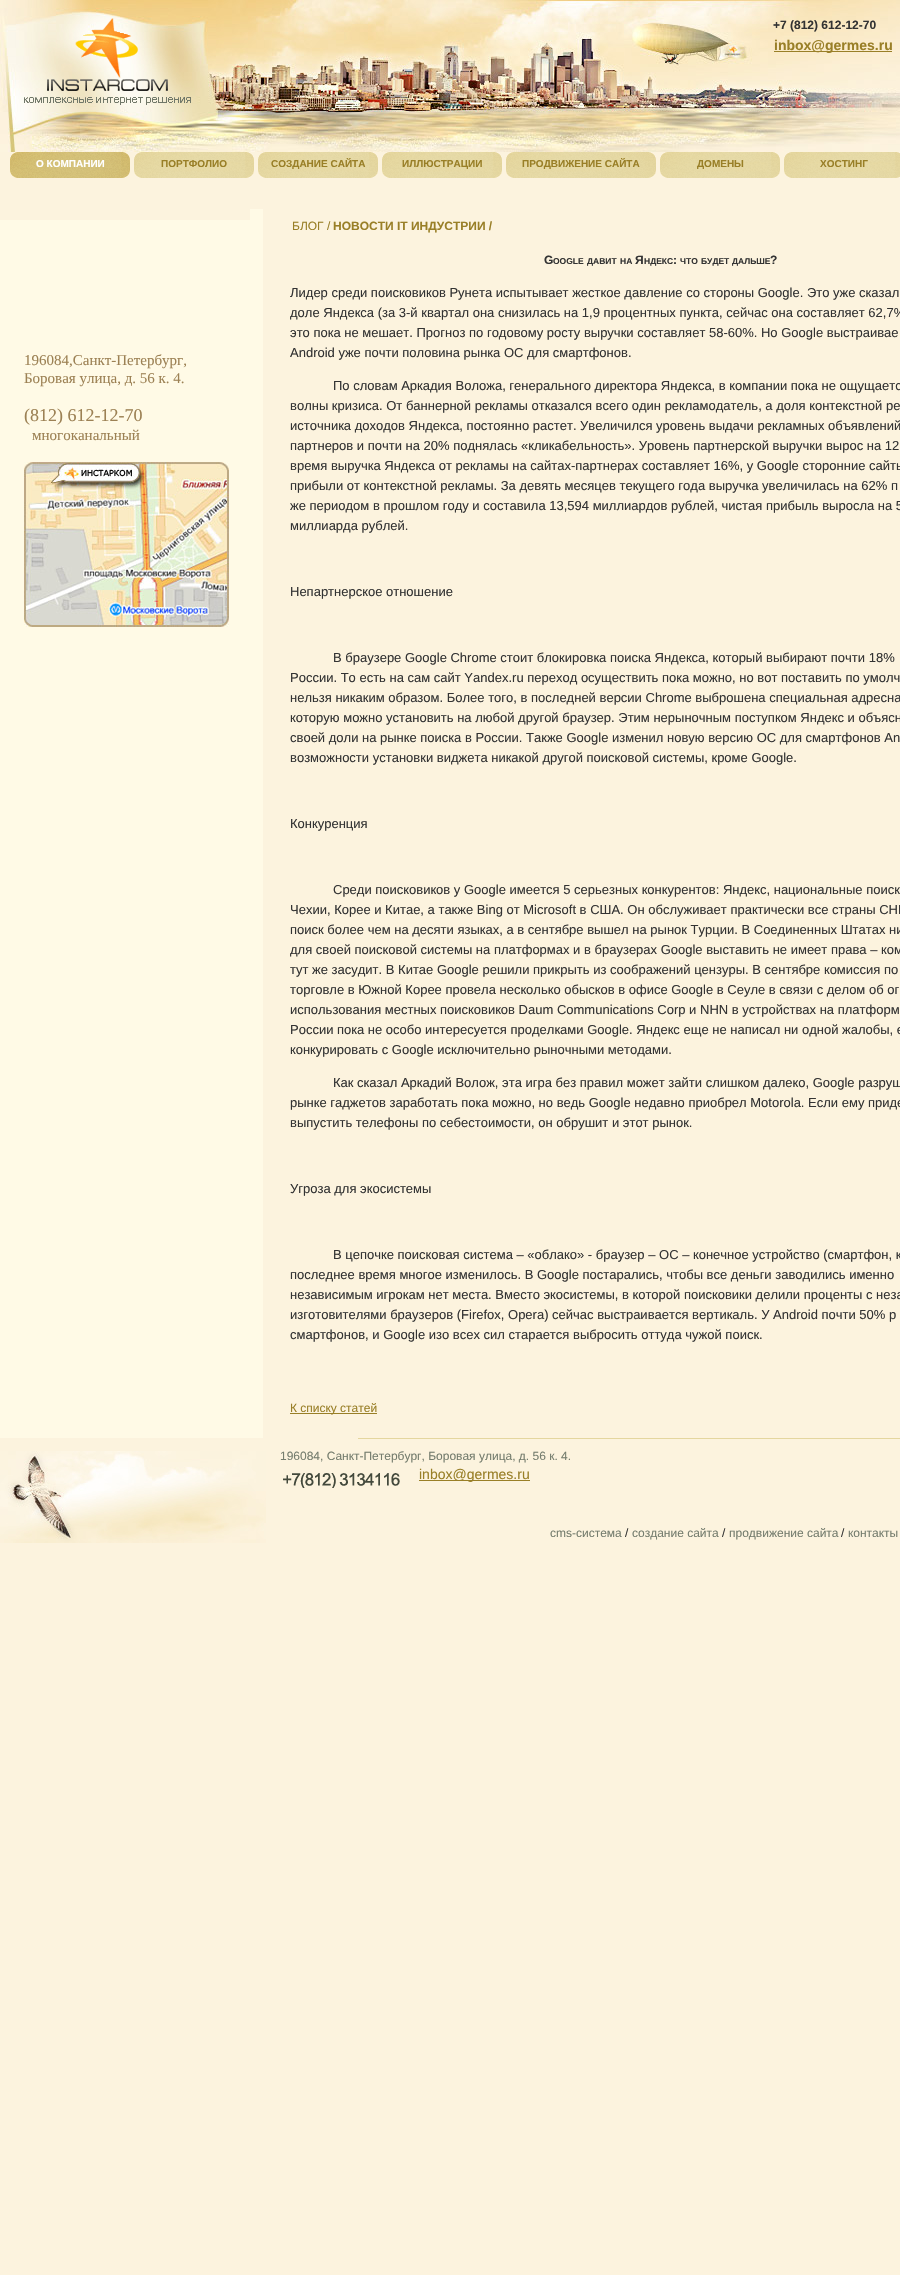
void draw(SkCanvas* c) {
SkPaint p;
p.setAntiAlias(true);
auto F=[&](const char* family, int weight, float size, bool italic = false){SkFontStyle style(weight, SkFontStyle::kNormal_Width,italic ? SkFontStyle::kItalic_Slant : SkFontStyle::kUpright_Slant);SkFont result(fontMgr->matchFamilyStyle(family, style), size);result.setSubpixel(true);return result;};
auto T=[&](const char* s, float x, float y, const SkFont& font){c->drawString(s, x, y, font, p);};
auto R=[&](float x, float y, float w, float h){c->drawRect(SkRect::MakeXYWH(x, y, w, h), p);};
auto I=[&](const char* path, float x, float y, float w, float h){auto image = SkImages::DeferredFromEncodedData(SkData::MakeFromFileName(path));c->drawImageRect(image, SkRect::MakeXYWH(x, y, w, h), SkSamplingOptions());};
c->clear(0xfffcf3de);
I("1.png",0,0,900,152);
auto f1 = F("Liberation Sans",700,12);
p.setColor(0xff333333);
T("+7 (812) 612-12-70",773,29,f1);
p.setColor(0xff997f27);
R(774,51,118,1);
auto f2 = F("Liberation Sans",700,14);
T("inbox@germes.ru",774,50,f2);
I("2.png",24,18,167,87);
I("3.png",10,152,120,26);
auto f3 = F("Liberation Sans",700,10);
p.setColor(0xffffffff);
T("О КОМПАНИИ",36,167,f3);
I("4.png",134,152,120,26);
p.setColor(0xff997f27);
T("ПОРТФОЛИО",161,167,f3);
I("4.png",258,152,120,26);
T("СОЗДАНИЕ САЙТА",271,167,f3);
I("4.png",382,152,120,26);
T("ИЛЛЮСТРАЦИИ",402,167,f3);
I("5.png",506,152,150,26);
T("ПРОДВИЖЕНИЕ САЙТА",522,167,f3);
I("4.png",660,152,120,26);
T("ДОМЕНЫ",697,167,f3);
I("6.png",784,152,116,26);
T("ХОСТИНГ",820,167,f3);
I("7.png",0,1451,266,92);
p.setColor(0xfffffae6);
R(0,209,263,1229);
p.setColor(0xfffcf3de);
R(0,209,250,11);
auto f4 = F("Liberation Serif",400,15);
p.setColor(0xff9c8154);
T("196084,Санкт-Петербург,",24,365,f4);
T("Боровая улица, д. 56 к. 4.",24,383,f4);
auto f5 = F("Liberation Serif",400,18);
T("(812) 612-12-70",24,421,f5);
T("многоканальный",32,440,f4);
I("8.png",24,462,205,165);
auto f6 = F("Liberation Sans",400,12);
p.setColor(0xff997f27);
T("БЛОГ /",292,230,f6);
T("НОВОСТИ IT ИНДУСТРИИ /",333,230,f1);
p.setColor(0xff333333);
T("G",544,264,f1);
auto f7 = F("Liberation Sans",700,8.5);
T("OOGLE",553,264,f7);
T("ДАВИТ",587,264,f7);
T("НА",620,264,f7);
T("Я",635,264,f1);
T("НДЕКС",644,264,f7);
T(":",673,264,f1);
T("ЧТО",680,264,f7);
T("БУДЕТ",701,264,f7);
T("ДАЛЬШЕ",732,264,f7);
T("?",770,264,f1);
auto f8 = F("Liberation Sans",400,13);
T("Лидер среди поисковиков Рунета испытывает жесткое давление со стороны Google. Это уже сказал",290,297,f8);
T("доле Яндекса (за 3-й квартал она снизилась на 1,9 процентных пункта, сейчас она составляет 62,7%",290,317,f8);
T("это пока не мешает. Прогноз по годовому росту выручки составляет 58-60%. Но Google выстраивае",290,337,f8);
T("Android уже почти половина рынка ОС для смартфонов.",290,357,f8);
T("По словам Аркадия Воложа, генерального директора Яндекса, в компании пока не ощущаетс",333,390,f8);
T("волны кризиса. От баннерной рекламы отказался всего один рекламодатель, а доля контекстной ре",290,410,f8);
T("источника доходов Яндекса, постоянно растет. Увеличился уровень выдачи рекламных объявлений",290,430,f8);
T("партнеров и почти на 20% поднялась «кликабельность». Уровень партнерской выручки вырос на 12",290,450,f8);
T("время выручка Яндекса от рекламы на сайтах-партнерах составляет 16%, у Google сторонние сайты",290,470,f8);
T("прибыли от контекстной рекламы. За девять месяцев текущего года выручка увеличилась на 62% п",290,490,f8);
T("же периодом в прошлом году и составила 13,594 миллиардов рублей, чистая прибыль выросла на 5",290,510,f8);
T("миллиарда рублей.",290,530,f8);
T("Непартнерское отношение",290,596,f8);
T("В браузере Google Chrome стоит блокировка поиска Яндекса, который выбирают почти 18%",333,662,f8);
T("России. То есть на сам сайт Yandex.ru переход осуществить пока можно, но вот поставить по умолч",290,682,f8);
T("нельзя никаким образом. Более того, в последней версии Chrome выброшена специальная адресна",290,702,f8);
T("которую можно установить на любой другой браузер. Этим нерыночным поступком Яндекс и объясн",290,722,f8);
T("своей доли на рынке поиска в России. Также Google изменил новую версию ОС для смартфонов An",290,742,f8);
T("возможности установки виджета никакой другой поисковой системы, кроме Google.",290,762,f8);
T("Конкуренция",290,828,f8);
T("Среди поисковиков у Google имеется 5 серьезных конкурентов: Яндекс, национальные поиск",333,894,f8);
T("Чехии, Корее и Китае, а также Bing от Microsoft в США. Он обслуживает практически все страны СНГ",290,914,f8);
T("поиск более чем на десяти языках, а в сентябре вышел на рынок Турции. В Соединенных Штатах ни",290,934,f8);
T("для своей поисковой системы на платформах и в браузерах Google выставить не имеет права – ком",290,954,f8);
T("тут же засудит. В Китае Google решили прикрыть из соображений цензуры. В сентябре комиссия по",290,974,f8);
T("торговле в Южной Корее провела несколько обысков в офисе Google в Сеуле в связи с делом об ог",290,994,f8);
T("использования местных поисковиков Daum Communications Corp и NHN в устройствах на платформ",290,1014,f8);
T("России пока не особо интересуется проделками Google. Яндекс еще не написал ни одной жалобы, е",290,1034,f8);
T("конкурировать с Google исключительно рыночными методами.",290,1054,f8);
T("Как сказал Аркадий Волож, эта игра без правил может зайти слишком далеко, Google разруш",333,1087,f8);
T("рынке гаджетов заработать пока можно, но ведь Google недавно приобрел Motorola. Если ему приде",290,1107,f8);
T("выпустить телефоны по себестоимости, он обрушит и этот рынок.",290,1127,f8);
T("Угроза для экосистемы",290,1193,f8);
T("В цепочке поисковая система – «облако» - браузер – ОС – конечное устройство (смартфон, к",333,1259,f8);
T("последнее время многое изменилось. В Google постарались, чтобы все деньги заводились именно",290,1279,f8);
T("независимым игрокам нет места. Вместо экосистемы, в которой поисковики делили проценты с неза",290,1299,f8);
T("изготовителями браузеров (Firefox, Opera) сейчас выстраивается вертикаль. У Android почти 50% р",290,1319,f8);
T("смартфонов, и Google изо всех сил старается выбросить оттуда чужой поиск.",290,1339,f8);
p.setColor(0xff997f27);
R(290,1413,87,1);
T("К списку статей",290,1412,f6);
p.setColor(0xffe4d69f);
R(358,1438,542,1);
p.setColor(0xff757d6e);
T("196084, Санкт-Петербург, Боровая улица, д. 56 к. 4.",280,1460,f6);
I("9.png",283,1473,117,15);
p.setColor(0xff997f27);
R(419,1480,111,1);
auto f9 = F("Liberation Sans",400,14);
T("inbox@germes.ru",419,1479,f9);
p.setColor(0xff757d6e);
T("cms-система",550,1537,f6);
p.setColor(0xff333333);
T("/",625,1537,f6);
p.setColor(0xff757d6e);
T("создание сайта",632,1537,f6);
p.setColor(0xff333333);
T("/",722,1537,f6);
p.setColor(0xff757d6e);
T("продвижение сайта",729,1537,f6);
p.setColor(0xff333333);
T("/",841,1537,f6);
p.setColor(0xff757d6e);
T("контакты",848,1537,f6);
}
